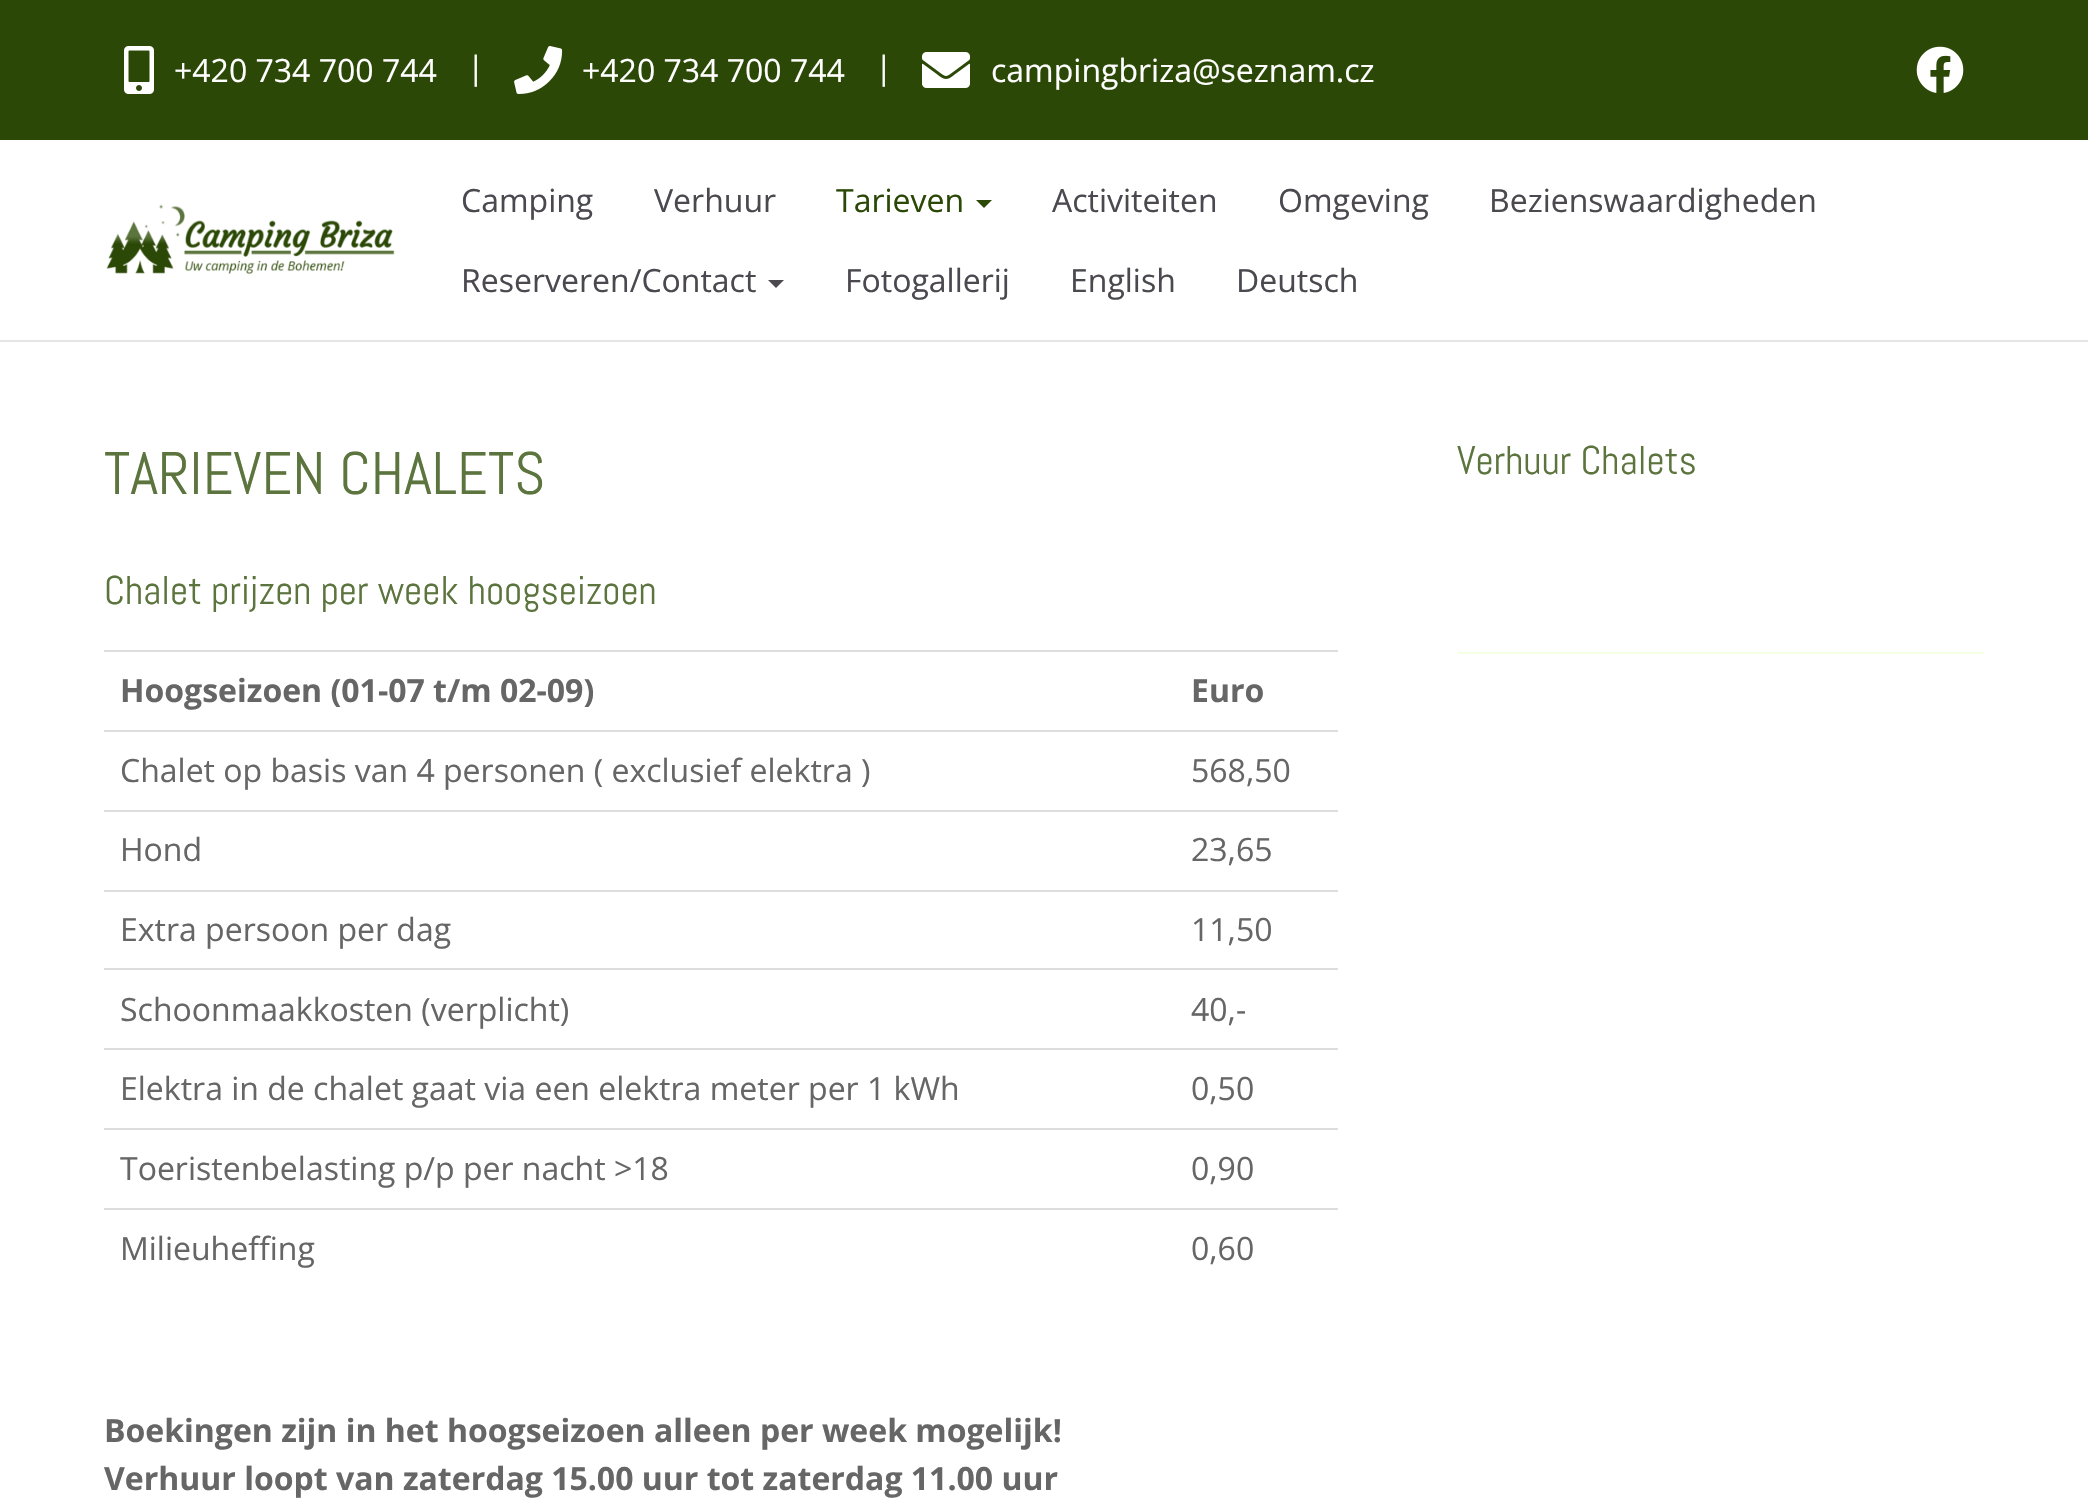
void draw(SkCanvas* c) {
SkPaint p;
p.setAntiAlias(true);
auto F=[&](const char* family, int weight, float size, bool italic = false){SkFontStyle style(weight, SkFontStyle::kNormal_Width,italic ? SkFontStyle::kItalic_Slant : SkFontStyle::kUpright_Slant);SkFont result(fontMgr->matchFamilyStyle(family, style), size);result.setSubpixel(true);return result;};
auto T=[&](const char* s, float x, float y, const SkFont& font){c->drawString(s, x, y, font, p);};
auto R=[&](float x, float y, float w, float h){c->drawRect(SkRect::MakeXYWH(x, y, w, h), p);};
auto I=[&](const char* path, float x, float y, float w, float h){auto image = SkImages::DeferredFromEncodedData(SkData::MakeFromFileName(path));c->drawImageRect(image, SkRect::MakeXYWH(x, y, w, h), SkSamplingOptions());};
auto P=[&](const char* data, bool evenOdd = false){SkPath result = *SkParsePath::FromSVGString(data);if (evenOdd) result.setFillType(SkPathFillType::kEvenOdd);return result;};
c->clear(0xffffffff);
p.setColor(0xff2b4806);
R(0,0,2088,140);
I("1.png",124,46,30,48);
auto f1 = F("Open Sans",400,32);
p.setColor(0xffffffff);
T("+420 734 700 744",174,82,f1);
T("|",467,79,f1);
I("2.png",514,46,49,48);
T("+420 734 700 744",582,82,f1);
T("|",875,79,f1);
I("3.png",922,52,48,36);
T("campingbriza@seznam.cz",991,82,f1);
I("4.png",1916,46,48,47);
p.setColor(0xffe6e6e6);
R(0,340,2088,2);
I("5.png",106,204,289,70);
p.setColor(0xff4b494f);
T("Camping",461,212,f1);
T("Verhuur",654,212,f1);
p.setColor(0xff2b4806);
T("Tarieven",836,212,f1);
c->drawPath(P("M976 200h16l-8 8z"),p);
p.setColor(0xff4b494f);
T("Activiteiten",1052,212,f1);
T("Omgeving",1278,212,f1);
T("Bezienswaardigheden",1489,212,f1);
T("Reserveren/Contact",461,292,f1);
c->drawPath(P("M768 280h16l-8 8z"),p);
T("Fotogallerij",845,292,f1);
T("English",1070,292,f1);
T("Deutsch",1236,292,f1);
auto f2 = F("Abel",400,60);
p.setColor(0xff5c743d);
T("TARIEVEN CHALETS",104,494,f2);
auto f3 = F("Abel",400,40);
T("Chalet prijzen per week hoogseizoen",104,604,f3);
auto f4 = F("Open Sans",700,32);
p.setColor(0xff666666);
T("Hoogseizoen (01-07 t/m 02-09)",120,702,f4);
p.setColor(0xffdddddd);
R(104,650,1234,2);
p.setColor(0xff666666);
T("Euro",1191,702,f4);
T("Chalet op basis van 4 personen ( exclusief elektra )",120,782,f1);
p.setColor(0xffdddddd);
R(104,730,1234,2);
p.setColor(0xff666666);
T("568,50",1191,782,f1);
T("Hond",120,861,f1);
p.setColor(0xffdddddd);
R(104,810,1234,2);
p.setColor(0xff666666);
T("23,65",1191,861,f1);
T("Extra persoon per dag",120,941,f1);
p.setColor(0xffdddddd);
R(104,890,1234,2);
p.setColor(0xff666666);
T("11,50",1191,941,f1);
T("Schoonmaakkosten (verplicht)",120,1021,f1);
p.setColor(0xffdddddd);
R(104,968,1234,2);
p.setColor(0xff666666);
T("40,-",1191,1021,f1);
T("Elektra in de chalet gaat via een elektra meter per 1 kWh",120,1100,f1);
p.setColor(0xffdddddd);
R(104,1048,1234,2);
p.setColor(0xff666666);
T("0,50",1191,1100,f1);
T("Toeristenbelasting p/p per nacht >18",120,1180,f1);
p.setColor(0xffdddddd);
R(104,1128,1234,2);
p.setColor(0xff666666);
T("0,90",1191,1180,f1);
T("Milieuheffing",120,1260,f1);
p.setColor(0xffdddddd);
R(104,1208,1234,2);
p.setColor(0xff666666);
T("0,60",1191,1260,f1);
T("Boekingen zijn in het hoogseizoen alleen per week mogelijk!",104,1442,f4);
T("Verhuur loopt van zaterdag 15.00 uur tot zaterdag 11.00 uur",104,1490,f4);
p.setColor(0xfff4ffe4);
R(1458,652,526,2);
p.setColor(0xff5c743d);
T("Verhuur Chalets",1457,474,f3);
}
